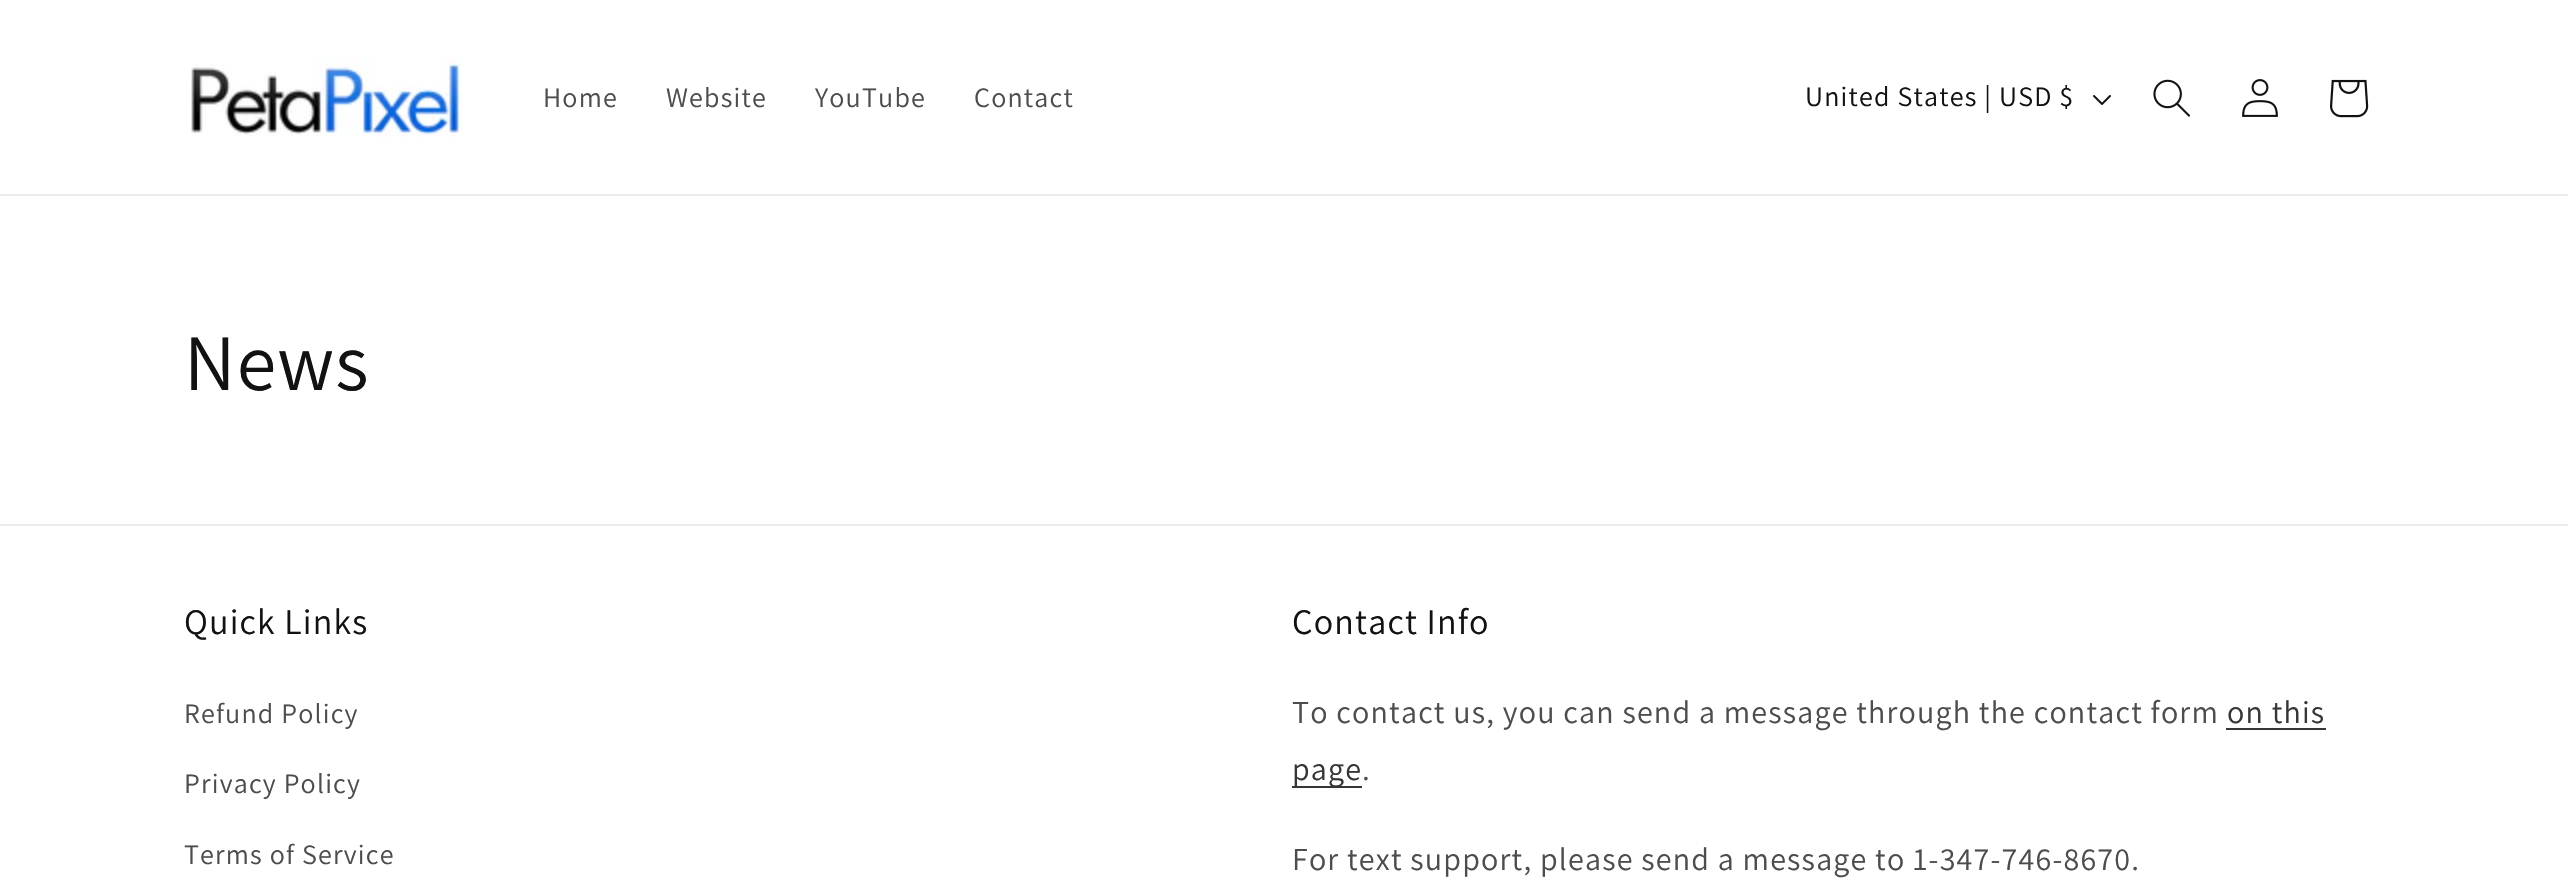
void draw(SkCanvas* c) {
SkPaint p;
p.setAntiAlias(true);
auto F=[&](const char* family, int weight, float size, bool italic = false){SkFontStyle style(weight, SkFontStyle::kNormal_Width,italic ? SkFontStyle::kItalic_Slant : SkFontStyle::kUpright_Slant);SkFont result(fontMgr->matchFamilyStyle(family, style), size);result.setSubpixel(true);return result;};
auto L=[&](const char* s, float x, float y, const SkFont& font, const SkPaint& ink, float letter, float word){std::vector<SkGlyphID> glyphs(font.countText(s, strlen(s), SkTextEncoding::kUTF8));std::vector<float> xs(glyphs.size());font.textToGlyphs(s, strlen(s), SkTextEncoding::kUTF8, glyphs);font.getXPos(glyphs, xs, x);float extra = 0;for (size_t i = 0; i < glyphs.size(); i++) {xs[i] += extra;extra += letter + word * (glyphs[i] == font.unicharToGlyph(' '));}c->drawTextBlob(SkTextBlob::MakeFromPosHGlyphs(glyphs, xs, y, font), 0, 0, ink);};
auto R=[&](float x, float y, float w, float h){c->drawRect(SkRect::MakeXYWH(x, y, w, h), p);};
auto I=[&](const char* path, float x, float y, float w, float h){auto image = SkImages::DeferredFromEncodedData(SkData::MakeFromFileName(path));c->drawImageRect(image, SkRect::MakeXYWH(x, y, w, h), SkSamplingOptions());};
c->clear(0xffffffff);
p.setColor(0xffececec);
R(0,194,2568,2);
I("1.png",191,56,273,81);
auto f1 = F("Assistant",400,28);
p.setColor(0xff4d4d4d);
L("Home",543,107,f1,p,1.2,0);
L("Website",666,107,f1,p,1.2,0);
L("YouTube",815,107,f1,p,1.2,0);
L("Contact",974,107,f1,p,1.2,0);
p.setColor(0xff121212);
L("United States | USD $",1805,106,f1,p,1.2,0);
I("2.png",2093,95,18,10);
I("3.png",2153,79,37,38);
I("4.png",2242,79,36,38);
I("5.png",2330,79,39,39);
auto f2 = F("Assistant",400,80);
L("News",184,390,f2,p,1.2,0);
p.setColor(0xffececec);
R(0,524,2568,2);
auto f3 = F("Assistant",400,36);
p.setColor(0xff121212);
L("Quick Links",184,634,f3,p,1.2,0);
p.setColor(0xff4d4d4d);
L("Refund Policy",184,723,f1,p,1.2,0);
L("Privacy Policy",184,793,f1,p,1.2,0);
L("Terms of Service",184,864,f1,p,1.2,0);
p.setColor(0xff121212);
L("Contact Info",1292,634,f3,p,1.2,0);
auto f4 = F("Assistant",400,32);
p.setColor(0xff4d4d4d);
L("To contact us, you can send a message through the contact form",1292,723,f4,p,1.2,0);
p.setColor(0xff363636);
L("on this",2227,723,f4,p,1.2,0);
R(2226,728,100,2);
R(1292,786,70,2);
L("page",1292,780,f4,p,1.2,0);
p.setColor(0xff4d4d4d);
L(".",1362,780,f4,p,1.2,0);
L("For text support, please send a message to 1-347-746-8670.",1292,870,f4,p,1.2,0);
}
